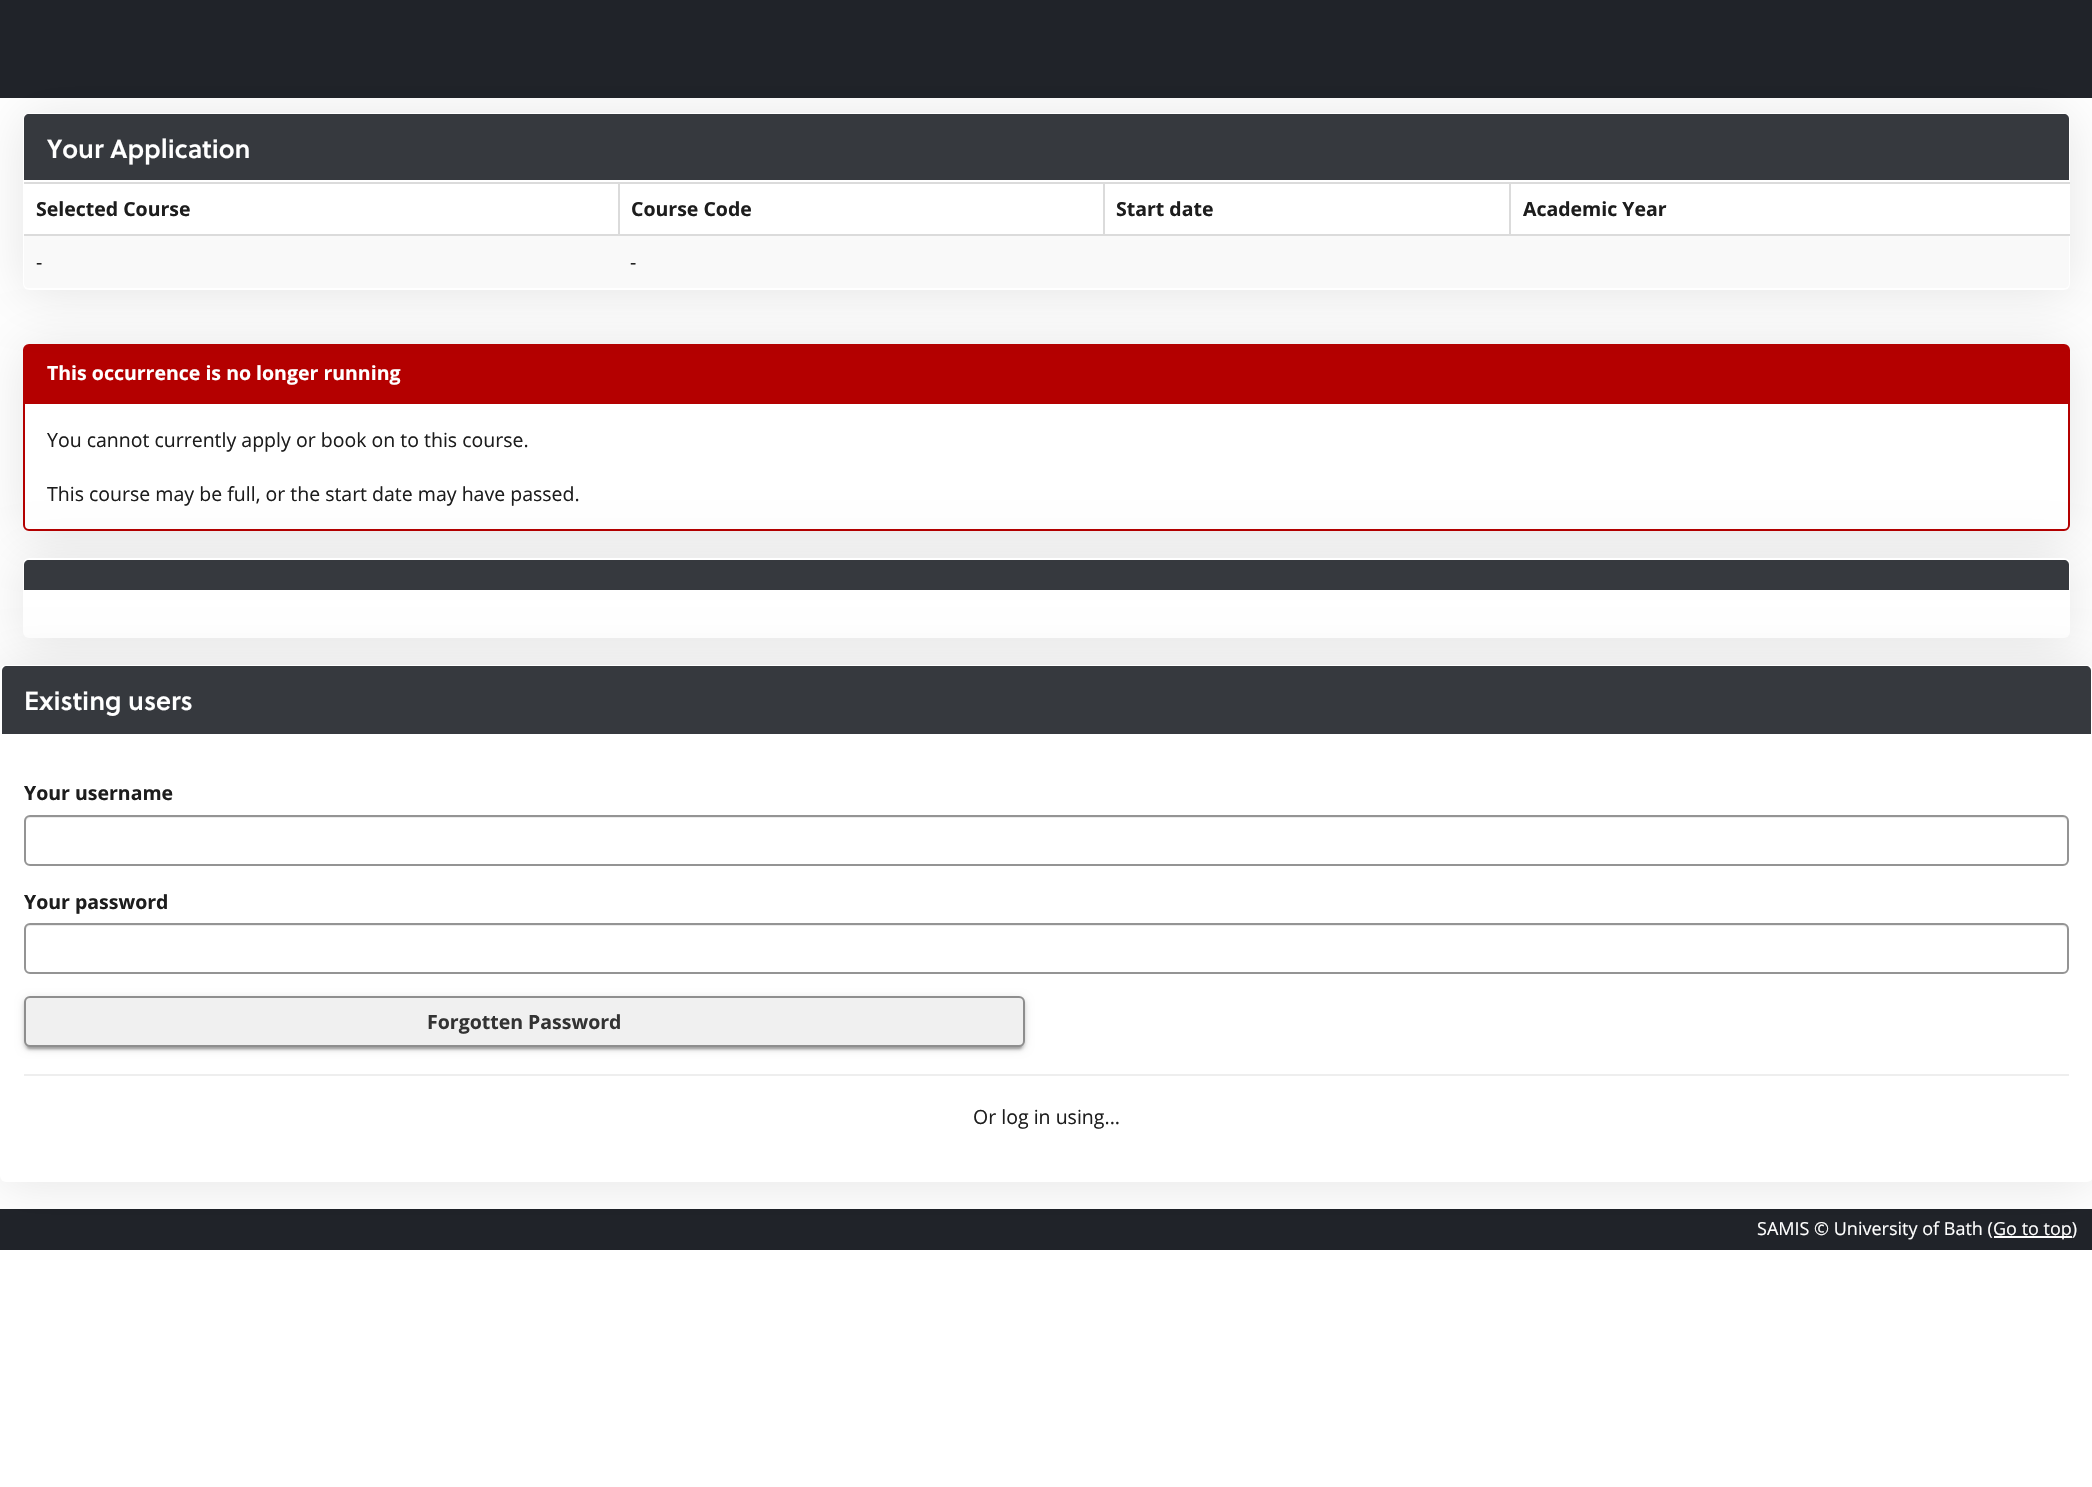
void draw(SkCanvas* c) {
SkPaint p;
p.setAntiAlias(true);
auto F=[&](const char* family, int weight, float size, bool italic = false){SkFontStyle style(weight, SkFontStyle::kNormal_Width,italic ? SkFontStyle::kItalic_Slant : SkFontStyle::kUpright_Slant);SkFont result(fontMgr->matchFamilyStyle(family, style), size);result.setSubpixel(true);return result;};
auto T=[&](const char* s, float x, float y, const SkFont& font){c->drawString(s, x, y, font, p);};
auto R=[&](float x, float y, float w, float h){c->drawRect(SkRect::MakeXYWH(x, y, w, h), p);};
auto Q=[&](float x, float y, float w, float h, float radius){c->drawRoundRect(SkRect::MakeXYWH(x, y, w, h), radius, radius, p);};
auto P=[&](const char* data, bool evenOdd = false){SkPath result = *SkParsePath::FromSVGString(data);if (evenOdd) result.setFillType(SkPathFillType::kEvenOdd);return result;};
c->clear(0xffffffff);
p.setColor(0xff202329);
R(0,0,2092,98);
p.setColor(0x1a000000);
p.setMaskFilter(SkMaskFilter::MakeBlur(kNormal_SkBlurStyle, 25.5));
c->drawRoundRect(SkRect::MakeXYWH(23,347,2047,187),6,6,p);
p.setMaskFilter(nullptr);
p.setColor(0xffffffff);
c->drawRoundRect(SkRect::MakeXYWH(24,345,2045,185),5,5,p);
p.setStroke(true);
p.setStrokeWidth(2);
p.setColor(0xffb40000);
c->drawRoundRect(SkRect::MakeXYWH(24,345,2045,185),5,5,p);
p.setStroke(false);
c->drawPath(P("M29 345h2035c3 0 5 2 5 5v54h-2045v-54c0-3 2-5 5-5z"),p);
p.setColor(0x1a000000);
p.setMaskFilter(SkMaskFilter::MakeBlur(kNormal_SkBlurStyle, 25.5));
c->drawRoundRect(SkRect::MakeXYWH(23,116,2047,177),6,6,p);
p.setMaskFilter(nullptr);
p.setColor(0xffffffff);
Q(23,113,2047,177,6);
p.setColor(0xff36393e);
c->drawPath(P("M29 114h2035c3 0 5 2 5 5v63h-2045v-63c0-3 2-5 5-5z"),p);
p.setColor(0xffffffff);
R(24,180,2045,2);
auto f1 = F("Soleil",600,26);
T("Your Application",47,158,f1);
p.setColor(0xffdbdbdb);
R(24,182,2046,2);
R(1509,234,561,2);
R(1509,182,2,54);
R(1103,234,408,2);
R(1103,182,2,54);
R(618,234,486,2);
R(618,182,2,54);
R(24,234,596,2);
auto f2 = F("Open Sans",700,19.5);
p.setColor(0xff1d1d1d);
T("Selected Course",36,216,f2);
T("Course Code",631,216,f2);
T("Start date",1116,216,f2);
T("Academic Year",1523,216,f2);
p.setColor(0xfff9f9f9);
c->drawPath(P("M24 236h2045v47c0 3-2 5-5 5h-2035c-3 0-5-2-5-5z"),p);
auto f3 = F("Open Sans",400,19.5);
p.setColor(0xff1d1d1d);
T("-",36,269,f3);
T("-",630,269,f3);
p.setColor(0xffffffff);
T("This occurrence is no longer running",47,380,f2);
p.setColor(0xff1d1d1d);
T("You cannot currently apply or book on to this course.",47,447,f3);
T("This course may be full, or the start date may have passed.",47,501,f3);
p.setColor(0x1a000000);
p.setMaskFilter(SkMaskFilter::MakeBlur(kNormal_SkBlurStyle, 25.5));
c->drawRoundRect(SkRect::MakeXYWH(23,561,2047,80),6,6,p);
p.setMaskFilter(nullptr);
p.setColor(0xffffffff);
Q(23,558,2047,80,6);
p.setColor(0xff36393e);
c->drawPath(P("M29 560h2035c3 0 5 2 5 5v26h-2045v-26c0-3 2-5 5-5z"),p);
p.setColor(0xffffffff);
R(24,590,2045,1);
p.setColor(0xff202329);
R(0,1209,2092,41);
p.setColor(0xffffffff);
R(1994,1236,78,2);
p.setColor(0x1a000000);
p.setMaskFilter(SkMaskFilter::MakeBlur(kNormal_SkBlurStyle, 25.5));
c->drawRoundRect(SkRect::MakeXYWH(0,668,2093,517),6,6,p);
p.setMaskFilter(nullptr);
p.setColor(0xffffffff);
Q(0,665,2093,517,6);
p.setColor(0xff36393e);
c->drawPath(P("M7 666h2079c3 0 5 2 5 5v64h-2089v-64c0-3 2-5 5-5z"),p);
p.setColor(0xffffffff);
R(2,734,2089,1);
T("Existing users",24,710,f1);
p.setColor(0xff1d1d1d);
T("Your username",24,800,f2);
p.setColor(0xffececec);
c->drawPath(P("M30 818h2032c3 0 5 2 5 4v-1c0-3-2-5-5-5h-2031c-3 0-5 2-5 5v1c0-2 2-4 4-4z"),p);
p.setStroke(true);
p.setColor(0xff949494);
c->drawRoundRect(SkRect::MakeXYWH(25,816,2043,49),5,5,p);
p.setStroke(false);
p.setColor(0xff1d1d1d);
T("Your password",24,909,f2);
p.setColor(0xffececec);
c->drawPath(P("M30 926h2032c3 0 5 2 5 4v-1c0-3-2-5-5-5h-2031c-3 0-5 2-5 5v1c0-2 2-4 4-4z"),p);
p.setStroke(true);
p.setColor(0xff949494);
c->drawRoundRect(SkRect::MakeXYWH(25,924,2043,49),5,5,p);
p.setStroke(false);
p.setColor(0x1f000000);
p.setMaskFilter(SkMaskFilter::MakeBlur(kNormal_SkBlurStyle, 4));
c->drawRoundRect(SkRect::MakeXYWH(24,998,1001,51),6,6,p);
p.setMaskFilter(nullptr);
p.setColor(0x24000000);
p.setMaskFilter(SkMaskFilter::MakeBlur(kNormal_SkBlurStyle, 1.5));
c->drawRoundRect(SkRect::MakeXYWH(24,999,1001,51),6,6,p);
p.setMaskFilter(nullptr);
p.setColor(0x33000000);
p.setMaskFilter(SkMaskFilter::MakeBlur(kNormal_SkBlurStyle, 1));
c->drawRoundRect(SkRect::MakeXYWH(27,1004,995,45),3,3,p);
p.setMaskFilter(nullptr);
p.setColor(0xfff0f0f0);
c->drawRoundRect(SkRect::MakeXYWH(25,997,999,49),5,5,p);
p.setStroke(true);
p.setColor(0xff8e8e8e);
c->drawRoundRect(SkRect::MakeXYWH(25,997,999,49),5,5,p);
p.setStroke(false);
p.setColor(0xff333333);
T("Forgotten Password",427,1029,f2);
p.setColor(0xffeeeeee);
R(24,1074,2045,2);
p.setColor(0xff1d1d1d);
T("Or log in using...",973,1124,f3);
auto f4 = F("Open Sans",400,18);
p.setColor(0xffffffff);
T("SAMIS © University of Bath (",1757,1235,f4);
T("Go to top)",1993,1235,f4);
}
